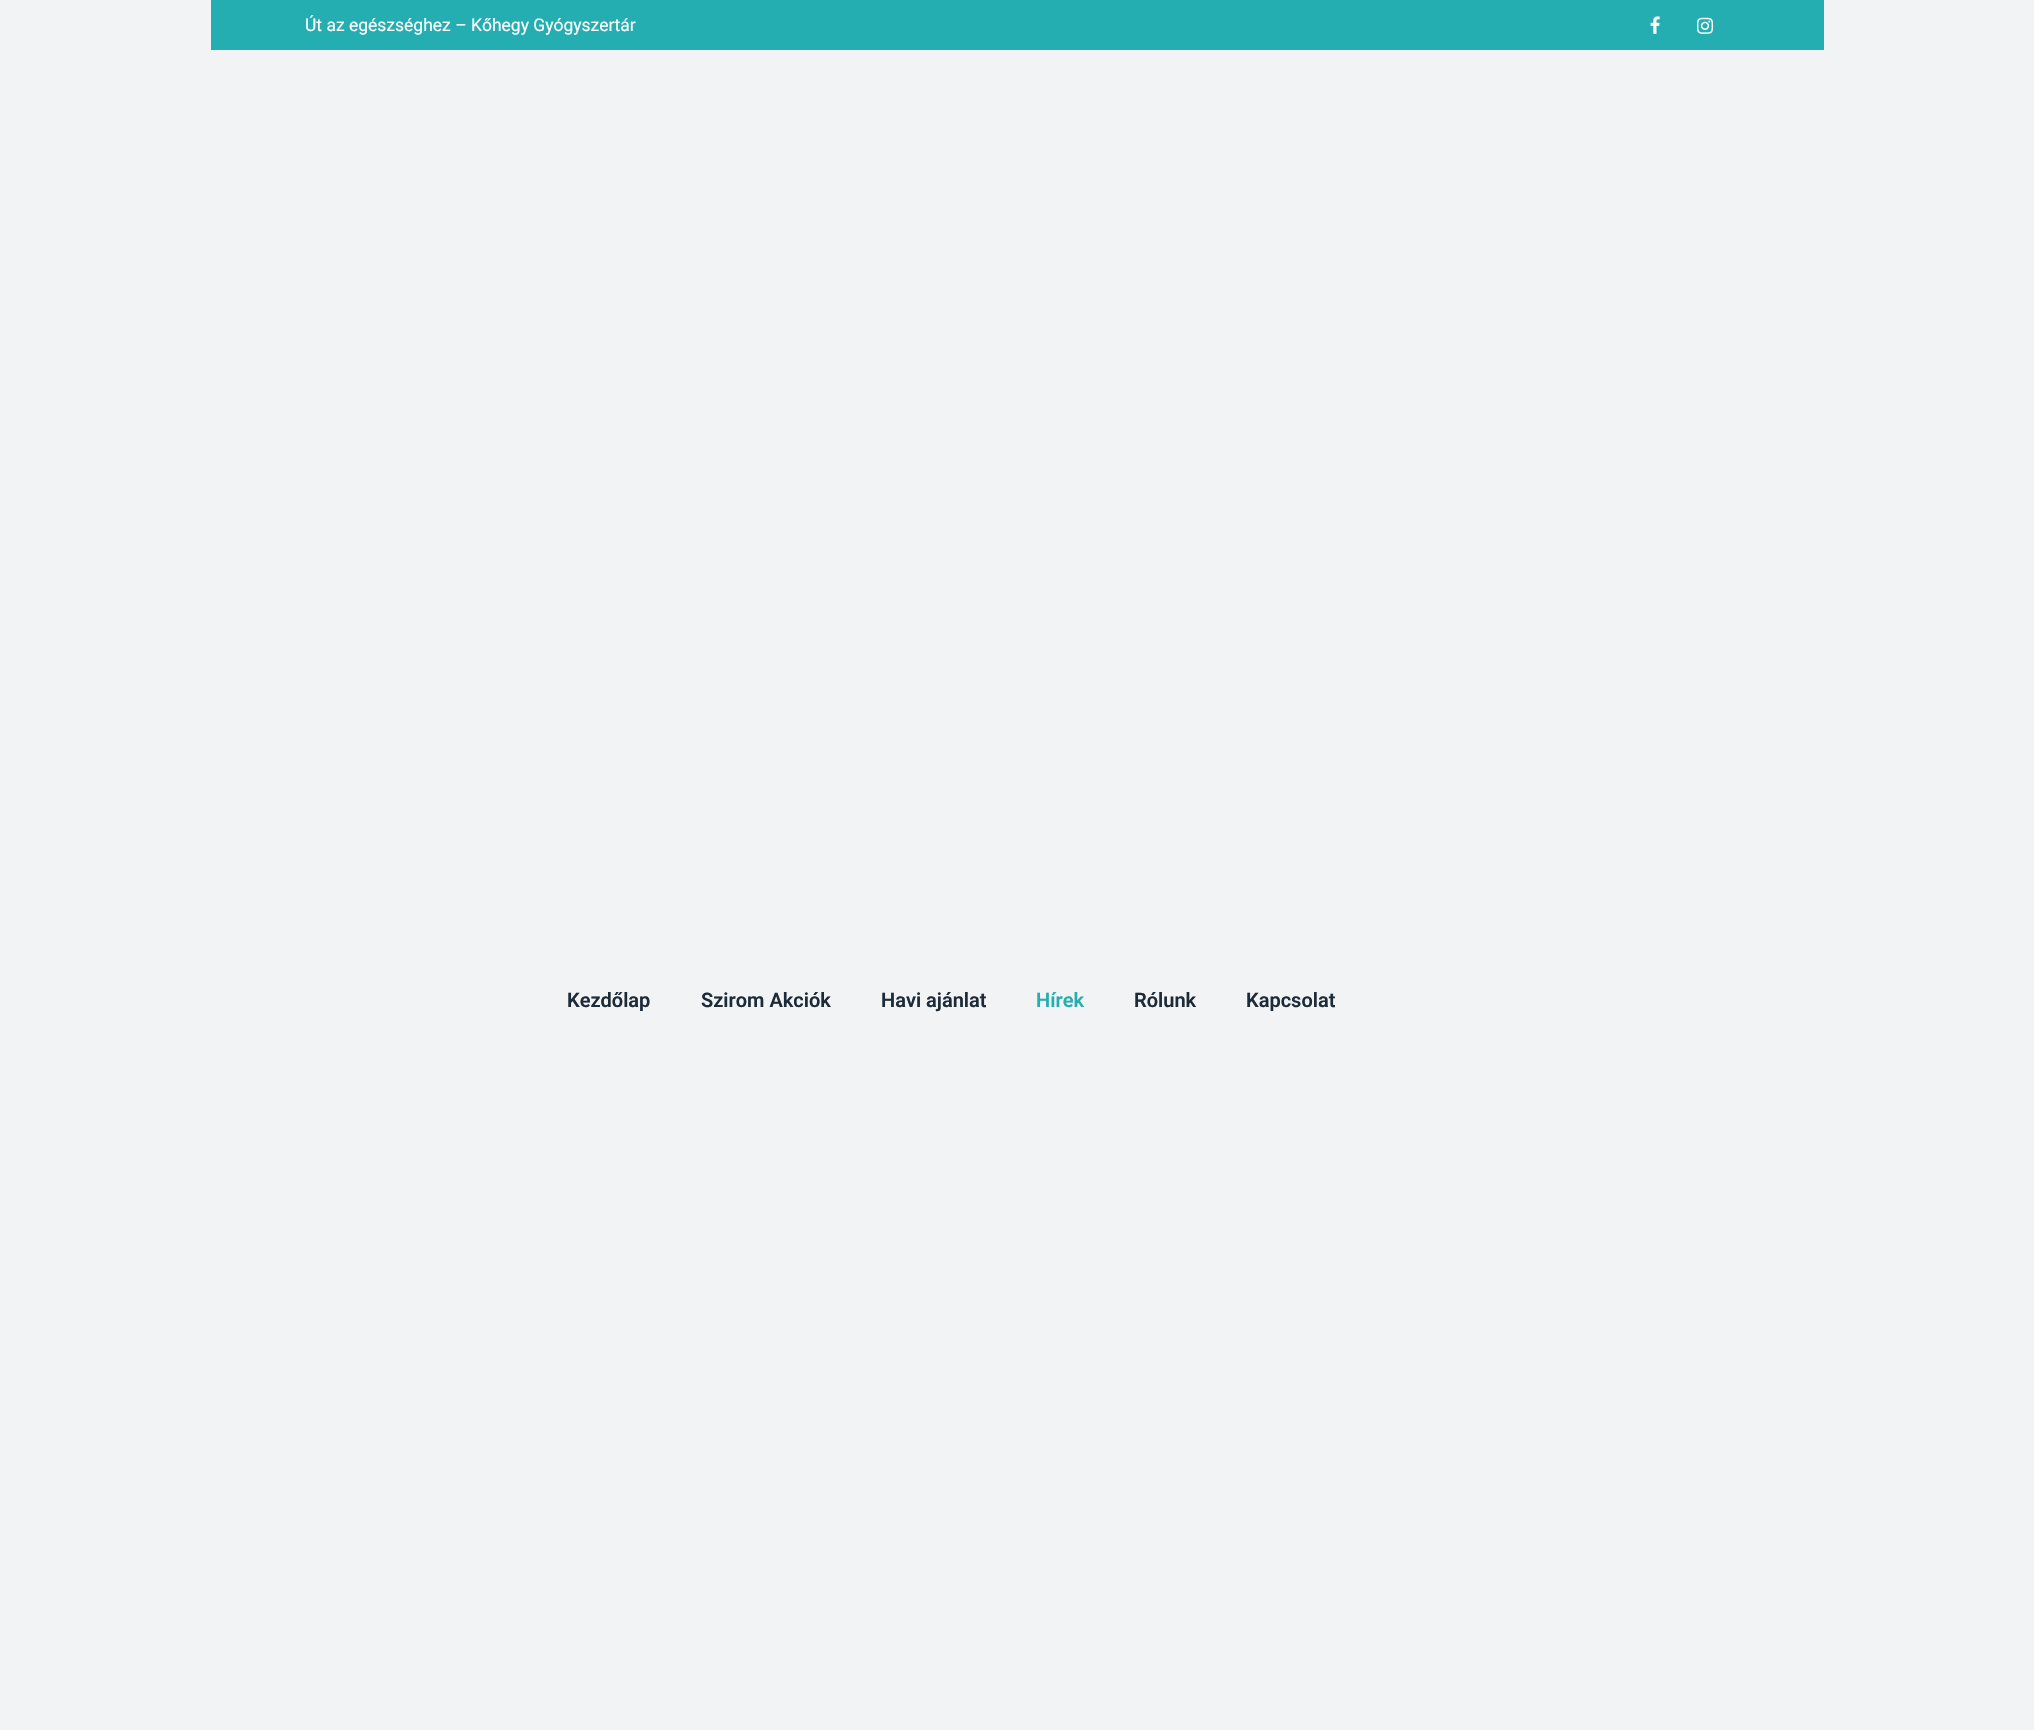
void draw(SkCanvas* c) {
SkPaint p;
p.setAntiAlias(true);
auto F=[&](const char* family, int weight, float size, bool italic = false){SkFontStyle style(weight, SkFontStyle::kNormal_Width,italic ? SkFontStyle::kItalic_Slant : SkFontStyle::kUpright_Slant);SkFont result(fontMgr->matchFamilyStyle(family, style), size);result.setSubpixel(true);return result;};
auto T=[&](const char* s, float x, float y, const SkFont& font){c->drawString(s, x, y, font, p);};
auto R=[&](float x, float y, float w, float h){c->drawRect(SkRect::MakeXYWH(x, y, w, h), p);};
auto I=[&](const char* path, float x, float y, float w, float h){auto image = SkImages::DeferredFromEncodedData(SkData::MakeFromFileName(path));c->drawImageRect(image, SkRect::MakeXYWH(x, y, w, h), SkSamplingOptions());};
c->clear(0xfff2f3f5);
p.setColor(0xff24aeb1);
R(211,0,1613,50);
auto f1 = F("Roboto",400,17.5);
p.setColor(0xffffffff);
T("Út az egészséghez – Kőhegy Gyógyszertár",305,31,f1);
I("1.png",1650,16,10,18);
I("2.png",1696,17,18,17);
auto f2 = F("Roboto",600,20);
p.setColor(0xff1d2a38);
T("Kezdőlap",567,1007,f2);
T("Szirom Akciók",701,1007,f2);
T("Havi ajánlat",881,1007,f2);
p.setColor(0xff24aeb1);
T("Hírek",1036,1007,f2);
p.setColor(0xff1d2a38);
T("Rólunk",1134,1007,f2);
T("Kapcsolat",1246,1007,f2);
}
